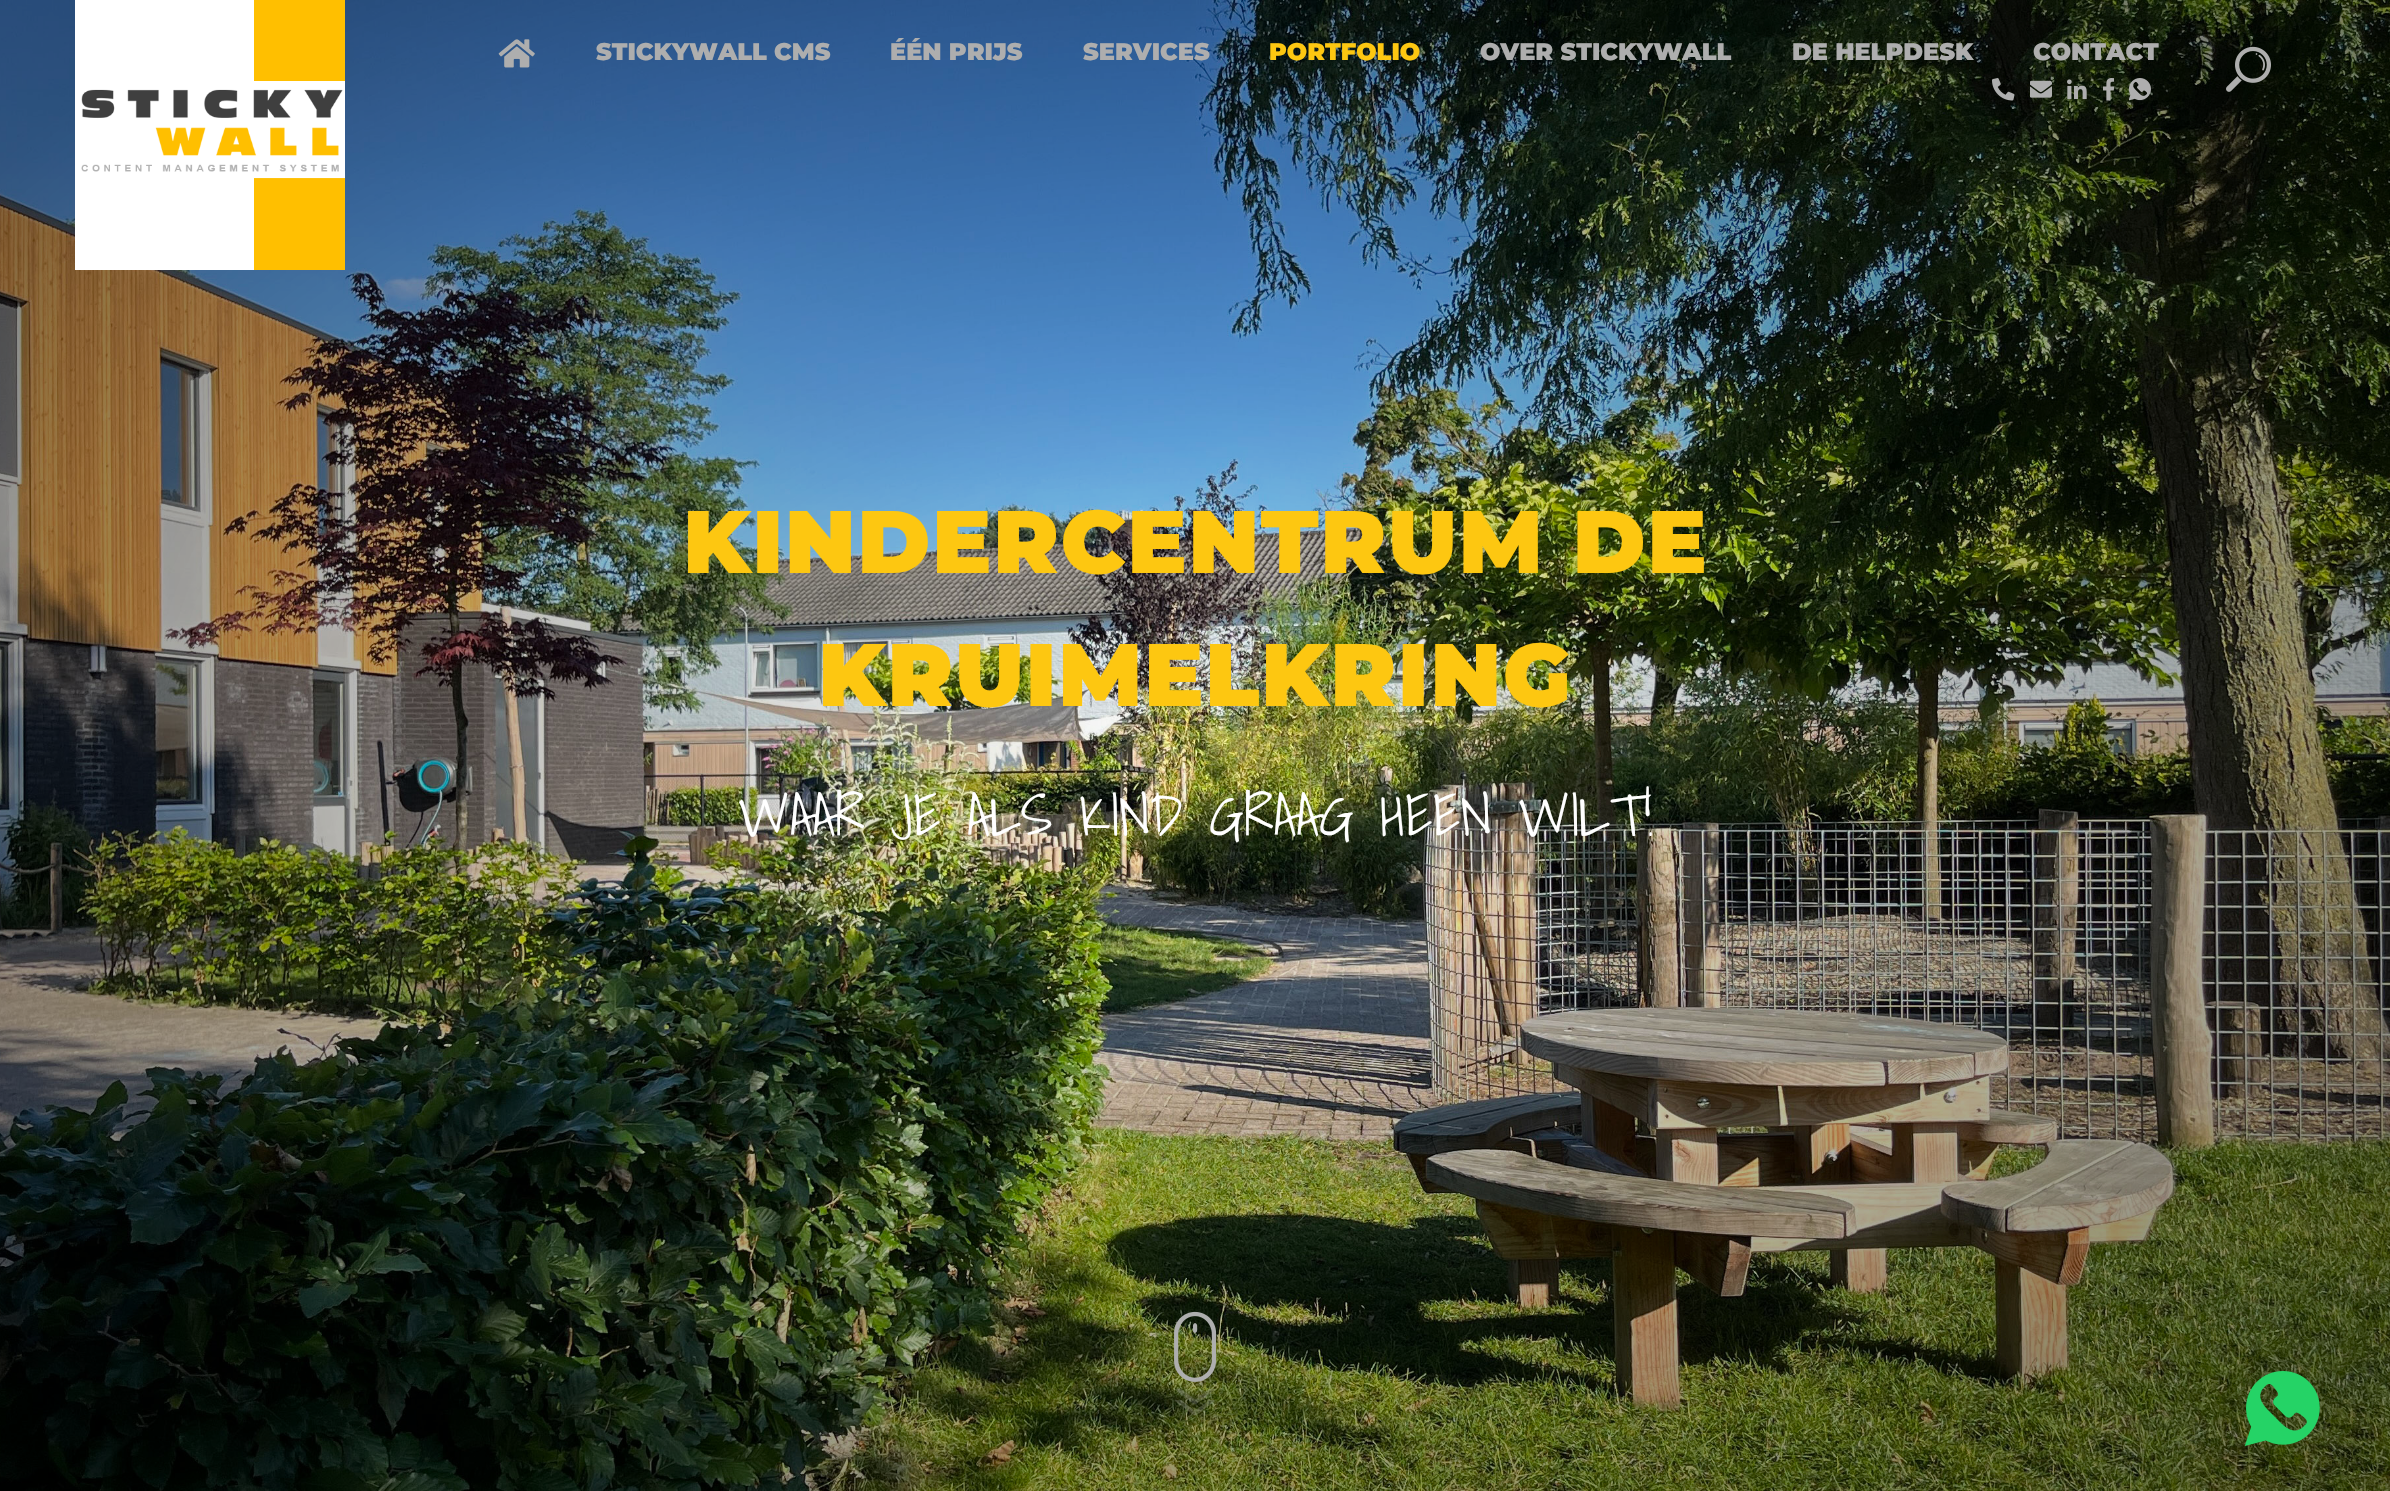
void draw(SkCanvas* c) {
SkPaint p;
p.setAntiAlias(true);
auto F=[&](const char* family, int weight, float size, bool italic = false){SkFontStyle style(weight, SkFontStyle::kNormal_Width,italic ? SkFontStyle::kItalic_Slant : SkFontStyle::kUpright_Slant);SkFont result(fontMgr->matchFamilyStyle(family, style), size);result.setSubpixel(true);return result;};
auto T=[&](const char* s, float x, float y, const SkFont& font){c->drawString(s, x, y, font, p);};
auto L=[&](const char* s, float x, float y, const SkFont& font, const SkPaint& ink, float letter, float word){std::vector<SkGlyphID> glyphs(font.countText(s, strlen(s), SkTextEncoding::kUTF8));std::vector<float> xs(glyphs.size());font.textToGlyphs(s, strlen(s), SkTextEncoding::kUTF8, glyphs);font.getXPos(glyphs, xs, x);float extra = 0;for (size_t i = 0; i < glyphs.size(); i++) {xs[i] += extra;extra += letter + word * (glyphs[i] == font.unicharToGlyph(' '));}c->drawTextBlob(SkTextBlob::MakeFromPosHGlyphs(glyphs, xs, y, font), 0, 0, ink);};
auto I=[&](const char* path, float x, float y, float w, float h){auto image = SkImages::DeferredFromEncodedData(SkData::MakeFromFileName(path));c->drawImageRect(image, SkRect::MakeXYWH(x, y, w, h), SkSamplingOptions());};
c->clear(0xffffffff);
I("9.png",0,0,2390,1491);
I("1.png",75,0,270,270);
I("2.png",498,39,37,29);
auto f1 = F("Montserrat",100,24);
p.setColor(0xffaeaeae);
T("STICKYWALL CMS",596,60,f1);
T("ÉÉN PRIJS",890,60,f1);
T("SERVICES",1083,60,f1);
p.setColor(0xfffdc711);
T("PORTFOLIO",1269,60,f1);
p.setColor(0xffaeaeae);
T("OVER STICKYWALL",1480,60,f1);
T("DE HELPDESK",1792,60,f1);
T("CONTACT",2033,60,f1);
I("3.png",2226,46,45,46);
I("4.png",1992,78,23,23);
I("5.png",2030,80,22,18);
I("6.png",2067,79,20,21);
I("7.png",2103,78,11,23);
I("8.png",2129,78,22,23);
auto f2 = F("Montserrat",100,88.5);
p.setColor(0xfffdc711);
L("KINDERCENTRUM DE",683,573,f2,p,1.5,0);
L("KRUIMELKRING",818,706,f2,p,1.5,0);
auto f3 = F("Shadows Into Light",300,58.5);
p.setColor(0xffffffff);
T("WAAR JE ALS KIND GRAAG HEEN WILT!",738,836,f3);
I("10.png",1174,1311,43,105);
I("11.png",2244,1371,76,75);
}
